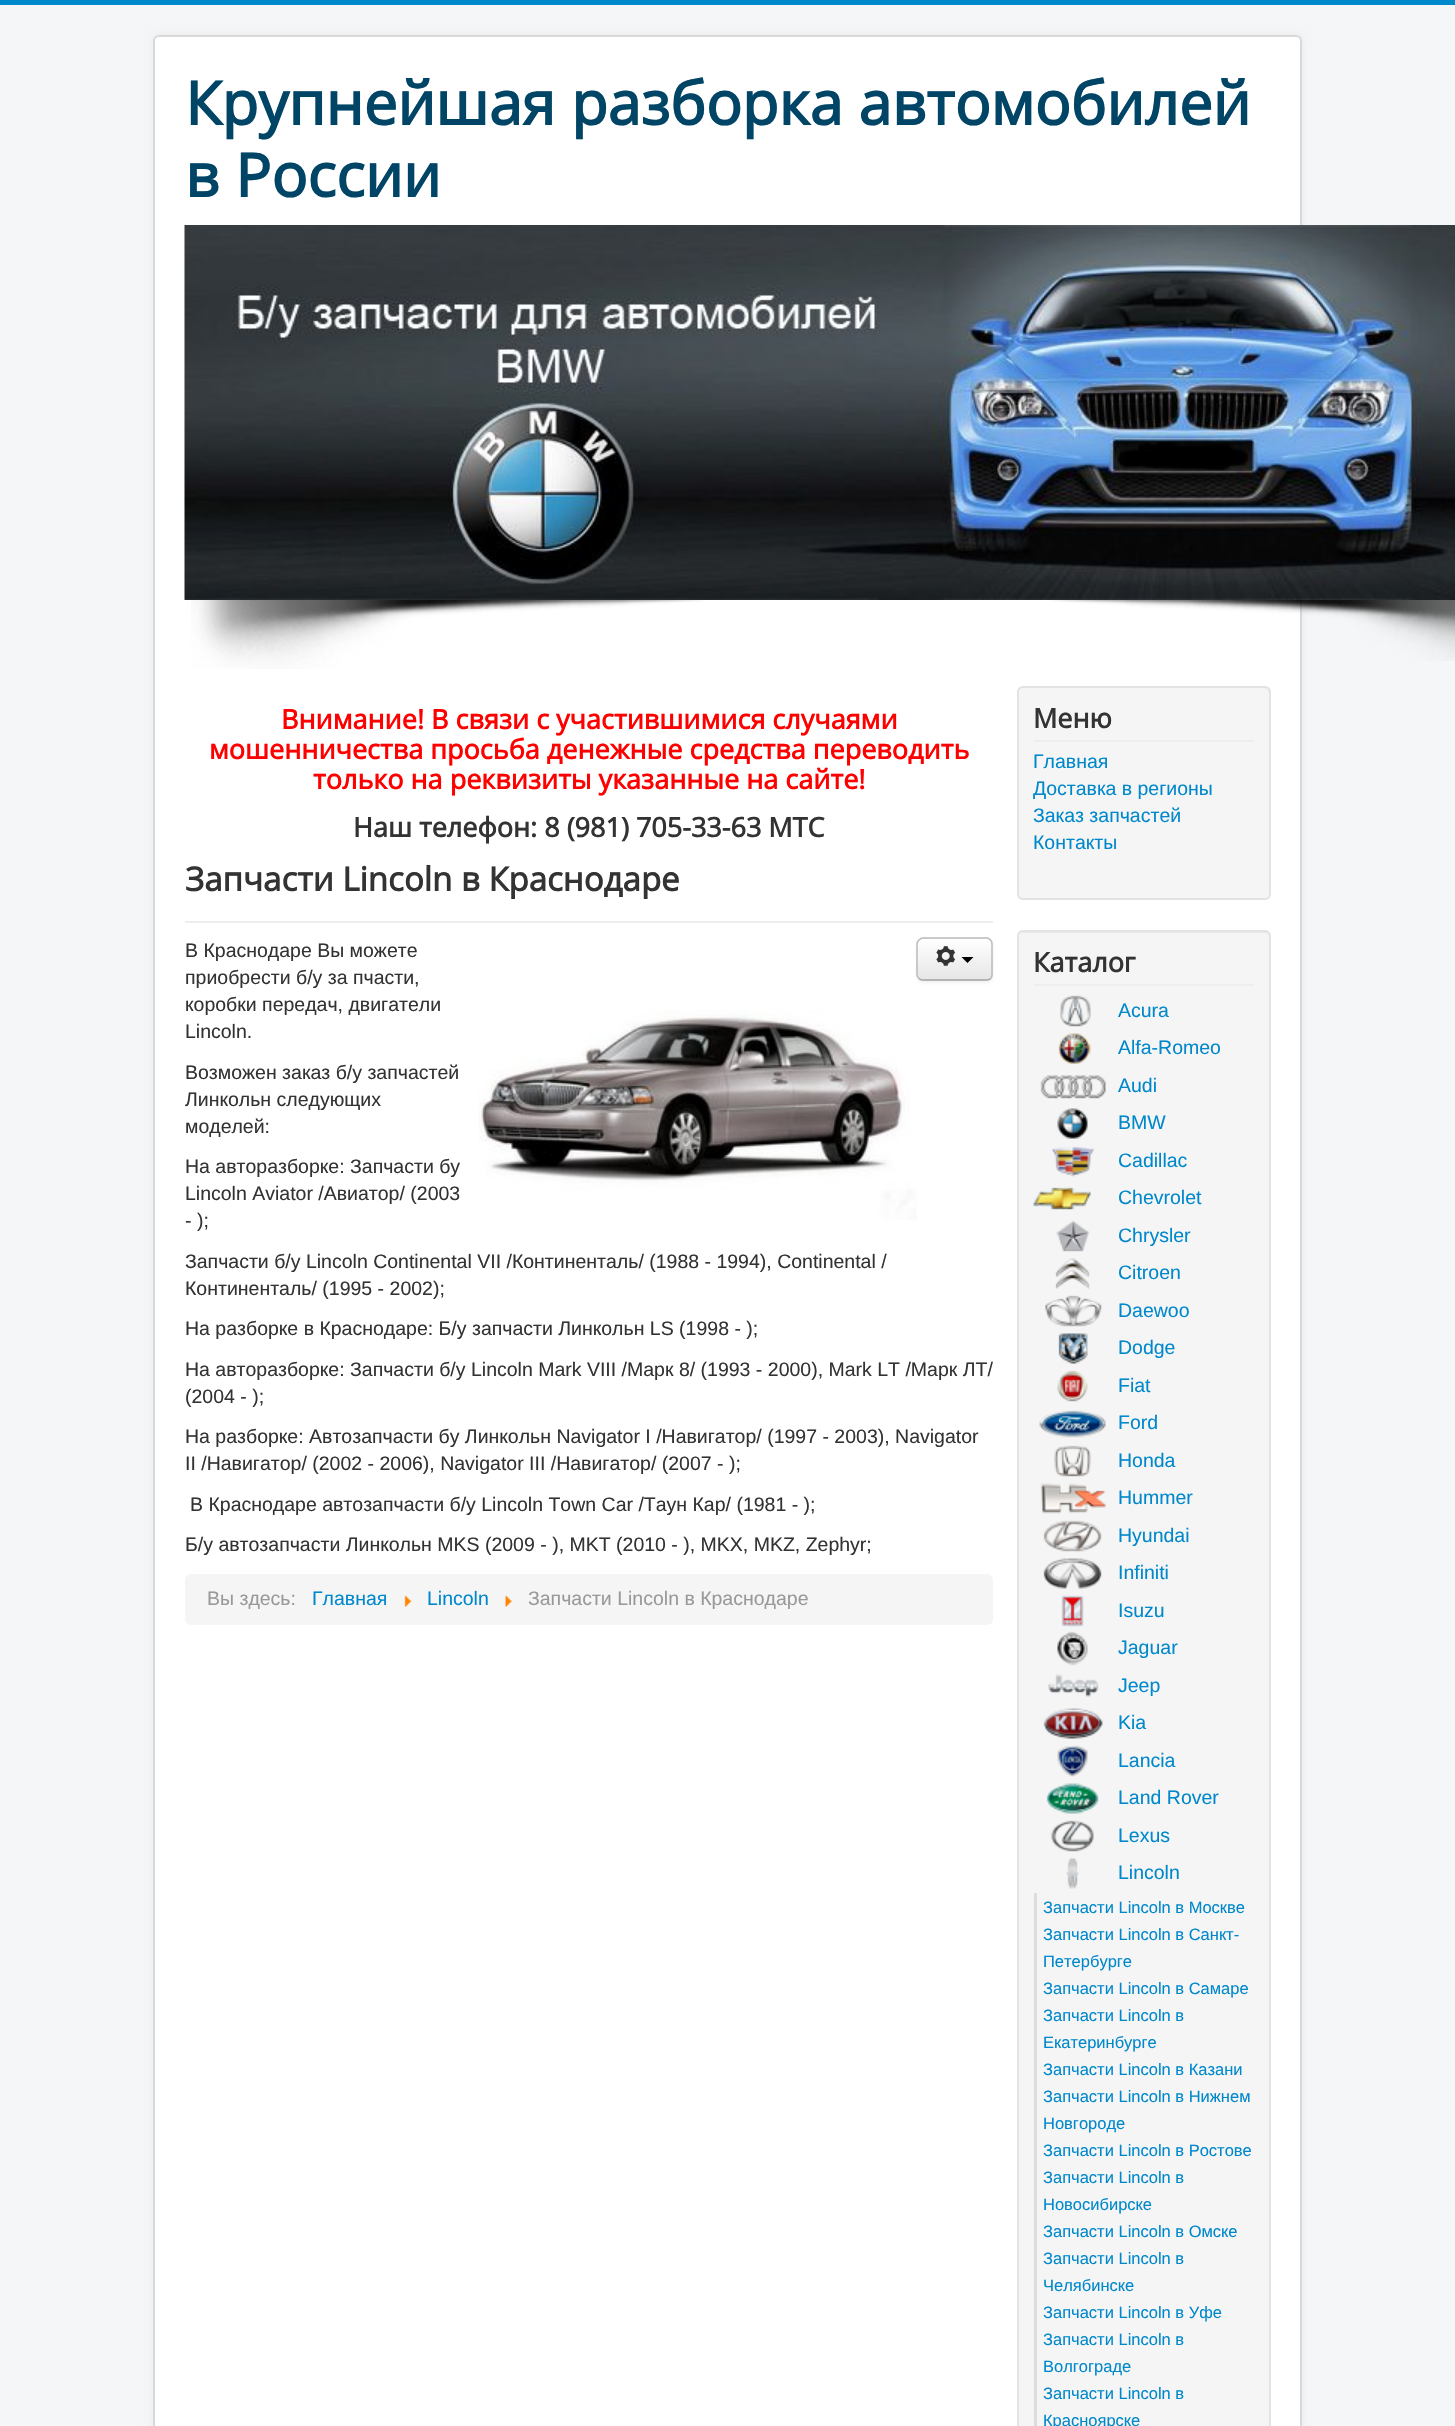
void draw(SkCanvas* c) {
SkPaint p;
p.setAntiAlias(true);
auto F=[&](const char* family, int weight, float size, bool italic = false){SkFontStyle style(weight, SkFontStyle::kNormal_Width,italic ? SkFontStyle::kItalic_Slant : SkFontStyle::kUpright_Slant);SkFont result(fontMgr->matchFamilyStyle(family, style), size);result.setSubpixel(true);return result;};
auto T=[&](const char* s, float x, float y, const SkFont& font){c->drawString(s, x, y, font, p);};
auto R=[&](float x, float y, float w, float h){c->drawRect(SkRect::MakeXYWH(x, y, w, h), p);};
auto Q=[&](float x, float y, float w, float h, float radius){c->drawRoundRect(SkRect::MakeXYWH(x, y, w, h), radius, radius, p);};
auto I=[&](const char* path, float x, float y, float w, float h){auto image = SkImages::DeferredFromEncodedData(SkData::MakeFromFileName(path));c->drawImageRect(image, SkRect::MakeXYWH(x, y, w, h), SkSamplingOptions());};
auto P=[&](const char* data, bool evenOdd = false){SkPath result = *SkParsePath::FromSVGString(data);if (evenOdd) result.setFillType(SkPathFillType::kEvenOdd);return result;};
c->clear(0xfff4f6f7);
p.setColor(0xff0088cc);
R(0,0,1455,5);
p.setColor(0x0d000000);
p.setMaskFilter(SkMaskFilter::MakeBlur(kNormal_SkBlurStyle, 4.5));
c->drawRoundRect(SkRect::MakeXYWH(153,35,1149,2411),6,6,p);
p.setMaskFilter(nullptr);
p.setColor(0xffffffff);
Q(153,35,1149,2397,6);
p.setStroke(true);
p.setStrokeWidth(2);
p.setColor(0x26000000);
c->drawRoundRect(SkRect::MakeXYWH(154,36,1147,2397),5,5,p);
auto f1 = F("Open Sans",700,60);
p.setStroke(false);
p.setColor(0xff004466);
T("Крупнейшая разборка автомобилей",185,125,f1);
T("в России",185,197,f1);
I("1.png",184,225,1271,375);
I("2.png",191,600,512,69);
I("3.png",1050,600,405,61);
auto f2 = F("Open Sans",700,27);
p.setColor(0xffff0000);
T("Внимание! В связи с участившимися случаями",281,729,f2);
T("мошенничества просьба денежные средства переводить",209,759,f2);
T("только на реквизиты указанные на сайте!",313,789,f2);
p.setColor(0xff333333);
T("Наш телефон: 8 (981) 705-33-63 МТС",353,837,f2);
p.setColor(0xffeeeeee);
R(185,921,808,2);
auto f3 = F("Open Sans",700,33);
p.setColor(0xff333333);
T("Запчасти Lincoln в Краснодаре",185,891,f3);
p.setColor(0x0d000000);
p.setMaskFilter(SkMaskFilter::MakeBlur(kNormal_SkBlurStyle, 1.5));
c->drawRoundRect(SkRect::MakeXYWH(917,939,76,44),6,6,p);
p.setMaskFilter(nullptr);
p.setColor(0xfff5f5f5);
Q(917,938,76,43,6);
c->save();
c->clipPath(P("M923 938h64c3.5 0 6 2.5 6 6v31c0 3.5-2.5 6-6 6h-64c-3.5 0-6-2.5-6-6v-31c0-3.5 2.5-6 6-6z"),true);
{
const SkColor colors[] = {0xffffffff,0xffe6e6e6};
const float stops[] = {0,1};
const SkPoint ends[] = {{955,939}, {955,980}};
p.setShader(SkGradientShader::MakeLinear(ends, colors, stops, 2, SkTileMode::kClamp));
p.setAlpha(255);
}
R(917,939,76,41);
c->restore();
p.setStroke(true);
p.setStrokeWidth(1.5);
p.setShader(nullptr);
p.setColor(0xffa2a2a2);
c->drawPath(P("M990.5 978.5c-1 1-2 1.5-3.5 1.5h-64.5c-1.5 0-2.5-.5-3.5-1.5"),p);
p.setColor(0xffbbbbbb);
c->drawPath(P("M919 978.5c-1-1-2-2-2-3.5v-31.5c0-1.5 1-2.5 2-3.5c1-1 2-2 3.5-2h64.5c1.5 0 2.5 1 3.5 2c1 1 1.5 2 1.5 3.5v31.5c0 1.5-.5 2.5-1.5 3.5"),p);
I("4.png",936,946,20,20);
p.setStroke(false);
p.setColor(0xff000000);
c->drawPath(P("M961.5 957h12l-6 6z"),p);
auto f4 = F("Liberation Sans",400,19.5);
p.setColor(0xff333333);
T("В Краснодаре Вы можете",185,957,f4);
T("приобрести б/у за пчасти,",185,984,f4);
T("коробки передач, двигатели",185,1011,f4);
T("Lincoln.",185,1038,f4);
I("5.png",478,1010,439,210);
T("Возможен заказ б/у запчастей",185,1079,f4);
T("Линкольн следующих",185,1106,f4);
T("моделей:",185,1133,f4);
T("На авторазборке: Запчасти бу",185,1173,f4);
T("Lincoln Aviator /Авиатор/ (2003",185,1200,f4);
T("- );",185,1227,f4);
T("Запчасти б/у Lincoln Continental VII /Континенталь/ (1988 - 1994), Continental /",185,1268,f4);
T("Континенталь/ (1995 - 2002);",185,1295,f4);
T("На разборке в Краснодаре: Б/у запчасти Линкольн LS (1998 - );",185,1335,f4);
T("На авторазборке: Запчасти б/у Lincoln Mark VIII /Марк 8/ (1993 - 2000), Mark LT /Марк ЛТ/",185,1376,f4);
T("(2004 - );",185,1403,f4);
T("На разборке: Автозапчасти бу Линкольн Navigator I /Навигатор/ (1997 - 2003), Navigator",185,1443,f4);
T("II /Навигатор/ (2002 - 2006), Navigator III /Навигатор/ (2007 - );",185,1470,f4);
T("В Краснодаре автозапчасти б/у Lincoln Town Car /Таун Кар/ (1981 - );",190,1511,f4);
T("Б/у автозапчасти Линкольн MKS (2009 - ), MKT (2010 - ), MKX, MKZ, Zephyr;",185,1551,f4);
p.setColor(0xfff5f5f5);
Q(185,1574,808,51,6);
p.setColor(0xff999999);
T("Вы здесь:",207,1605,f4);
p.setColor(0xff0088cc);
T("Главная",312,1605,f4);
I("6.png",404,1595,8,12);
T("Lincoln",427,1605,f4);
I("7.png",505,1595,7,12);
p.setColor(0xff999999);
T("Запчасти Lincoln в Краснодаре",528,1605,f4);
p.setColor(0xfff5f5f5);
Q(1017,686,254,214,6);
p.setColor(0xffe9e9e9);
c->drawPath(P("M1023 688h241c3 0 5 3 5 5v-1c0-3-2-5-5-5h-240c-2 0-4 1-5 3c1-1 3-2 4-2z"),p);
p.setStroke(true);
p.setStrokeWidth(2);
p.setColor(0xffe3e3e3);
c->drawRoundRect(SkRect::MakeXYWH(1018,687,252,212),5,5,p);
p.setStroke(false);
p.setColor(0xffeeeeee);
R(1034,740,220,2);
p.setColor(0xff333333);
T("Меню",1033,728,f2);
p.setColor(0xff0088cc);
T("Главная",1033,768,f4);
T("Доставка в регионы",1033,795,f4);
T("Заказ запчастей",1033,822,f4);
T("Контакты",1033,849,f4);
p.setColor(0xfff5f5f5);
Q(1017,930,254,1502,6);
p.setColor(0xffe9e9e9);
c->drawPath(P("M1023 933h241c3 0 5 2 5 5v-1c0-3-2-5-5-5h-240c-2 0-3 1-4 2z"),p);
p.setStroke(true);
p.setColor(0xffe3e3e3);
c->drawRoundRect(SkRect::MakeXYWH(1018,931,252,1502),5,5,p);
p.setStroke(false);
p.setColor(0xffeeeeee);
R(1034,984,220,2);
p.setColor(0xff333333);
T("Каталог",1033,972,f2);
I("8.png",1060,995,31,32);
p.setColor(0xff0088cc);
T("Acura",1118,1017,f4);
I("9.png",1058,1033,33,31);
T("Alfa-Romeo",1118,1054,f4);
I("10.png",1040,1075,66,24);
T("Audi",1118,1092,f4);
I("11.png",1057,1108,31,31);
T("BMW",1118,1129,f4);
I("12.png",1051,1146,43,31);
T("Cadillac",1118,1167,f4);
I("13.png",1033,1187,58,23);
T("Chevrolet",1118,1204,f4);
I("14.png",1056,1220,34,32);
T("Chrysler",1118,1242,f4);
I("15.png",1055,1258,35,31);
T("Citroen",1118,1279,f4);
I("16.png",1045,1295,57,32);
T("Daewoo",1118,1317,f4);
I("17.png",1058,1333,30,31);
T("Dodge",1118,1354,f4);
I("18.png",1057,1370,31,32);
T("Fiat",1118,1392,f4);
I("19.png",1039,1410,67,28);
T("Ford",1118,1429,f4);
I("20.png",1054,1445,37,32);
T("Honda",1118,1467,f4);
I("21.png",1040,1483,66,31);
T("Hummer",1118,1504,f4);
I("22.png",1043,1520,59,32);
T("Hyundai",1118,1542,f4);
I("23.png",1043,1558,59,31);
T("Infiniti",1118,1579,f4);
I("24.png",1061,1595,23,32);
T("Isuzu",1118,1617,f4);
I("25.png",1057,1631,31,35);
T("Jaguar",1118,1654,f4);
I("26.png",1048,1674,51,23);
T("Jeep",1118,1692,f4);
I("27.png",1043,1708,60,31);
T("Kia",1118,1729,f4);
I("28.png",1057,1745,31,32);
T("Lancia",1118,1767,f4);
I("29.png",1046,1783,53,31);
T("Land Rover",1118,1804,f4);
I("30.png",1051,1820,43,32);
T("Lexus",1118,1842,f4);
I("31.png",1066,1858,13,31);
T("Lincoln",1118,1879,f4);
p.setColor(0xffdddddd);
R(1034,1893,3,533);
auto f5 = F("Liberation Sans",400,16.5);
p.setColor(0xff0088cc);
T("Запчасти Lincoln в Москве",1043,1913,f5);
T("Запчасти Lincoln в Санкт-",1043,1940,f5);
T("Петербурге",1043,1967,f5);
T("Запчасти Lincoln в Самаре",1043,1994,f5);
T("Запчасти Lincoln в",1043,2021,f5);
T("Екатеринбурге",1043,2048,f5);
T("Запчасти Lincoln в Казани",1043,2075,f5);
T("Запчасти Lincoln в Нижнем",1043,2102,f5);
T("Новгороде",1043,2129,f5);
T("Запчасти Lincoln в Ростове",1043,2156,f5);
T("Запчасти Lincoln в",1043,2183,f5);
T("Новосибирске",1043,2210,f5);
T("Запчасти Lincoln в Омске",1043,2237,f5);
T("Запчасти Lincoln в",1043,2264,f5);
T("Челябинске",1043,2291,f5);
T("Запчасти Lincoln в Уфе",1043,2318,f5);
T("Запчасти Lincoln в",1043,2345,f5);
T("Волгограде",1043,2372,f5);
T("Запчасти Lincoln в",1043,2399,f5);
T("Красноярске",1043,2426,f5);
}
